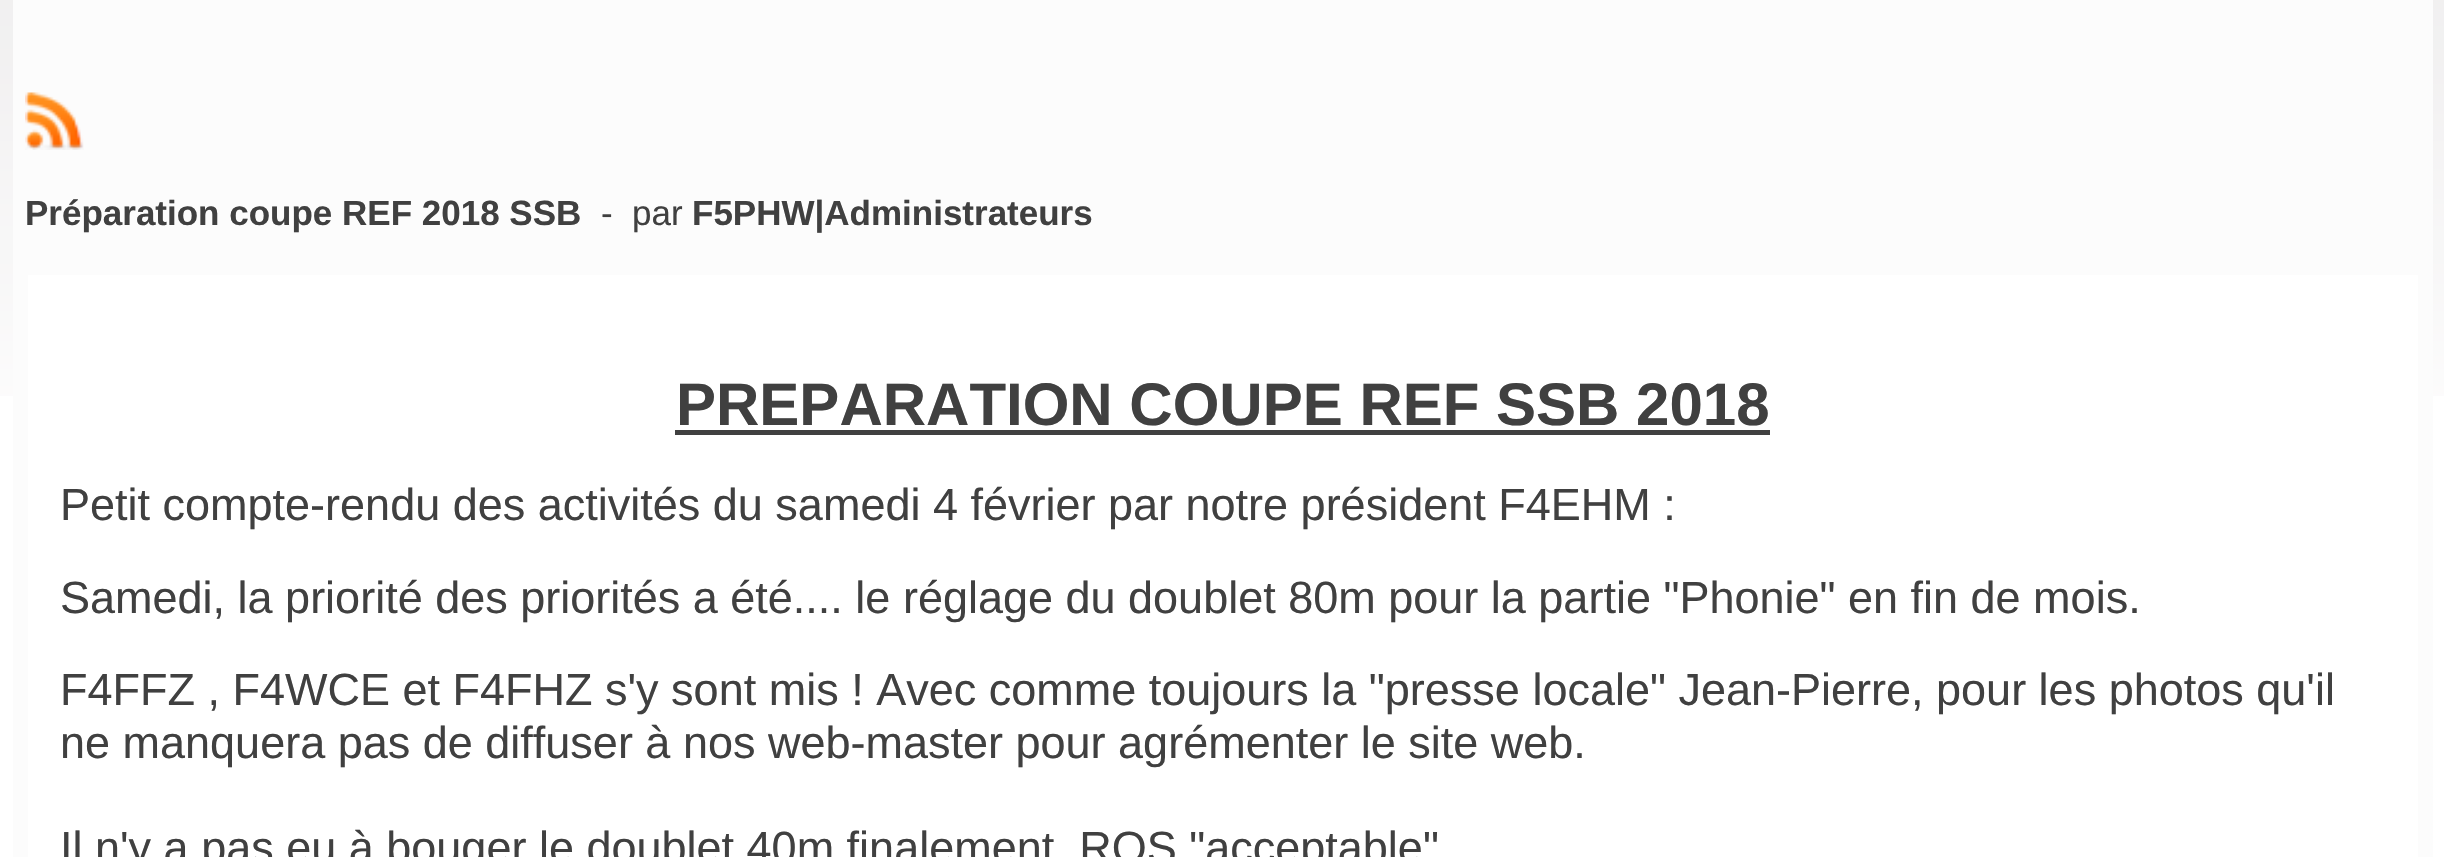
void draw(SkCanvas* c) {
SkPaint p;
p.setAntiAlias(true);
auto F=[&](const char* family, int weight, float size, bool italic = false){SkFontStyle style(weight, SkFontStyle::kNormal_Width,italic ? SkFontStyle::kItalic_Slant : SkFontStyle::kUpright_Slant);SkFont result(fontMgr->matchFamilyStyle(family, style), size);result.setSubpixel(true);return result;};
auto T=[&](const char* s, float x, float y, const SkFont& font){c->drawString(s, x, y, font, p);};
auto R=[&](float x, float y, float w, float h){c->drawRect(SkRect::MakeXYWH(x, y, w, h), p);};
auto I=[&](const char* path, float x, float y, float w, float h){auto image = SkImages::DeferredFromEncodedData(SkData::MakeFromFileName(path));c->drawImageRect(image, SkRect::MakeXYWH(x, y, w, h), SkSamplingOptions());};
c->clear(0xffffffff);
I("1.png",0,0,2444,396);
p.setColor(0xfffcfcfc);
R(13,0,2420,857);
I("2.png",25,92,59,58);
auto f1 = F("Liberation Sans",700,35);
p.setColor(0xff404040);
T("Préparation coupe REF 2018 SSB",25,225,f1);
auto f2 = F("Liberation Sans",400,35);
T("-  par",601,225,f2);
T("F5PHW|Administrateurs",692,225,f1);
p.setColor(0xffffffff);
R(28,275,2390,582);
auto f3 = F("Liberation Sans",700,60);
p.setColor(0xff404040);
T("PREPARATION COUPE REF SSB 2018",676,425,f3);
R(675,430,1095,5);
auto f4 = F("Liberation Sans",400,45);
T("Petit compte-rendu des activités du samedi 4 février par notre président F4EHM :",60,520,f4);
T("Samedi, la priorité des priorités a été.... le réglage du doublet 80m pour la partie \"Phonie\" en fin de mois.",60,613,f4);
T("F4FFZ , F4WCE et F4FHZ s'y sont mis ! Avec comme toujours la \"presse locale\" Jean-Pierre, pour les photos qu'il",60,705,f4);
T("ne manquera pas de diffuser à nos web-master pour agrémenter le site web.",60,758,f4);
T("Il n'y a pas eu à bouger le doublet 40m finalement. ROS \"acceptable\"",60,863,f4);
}
